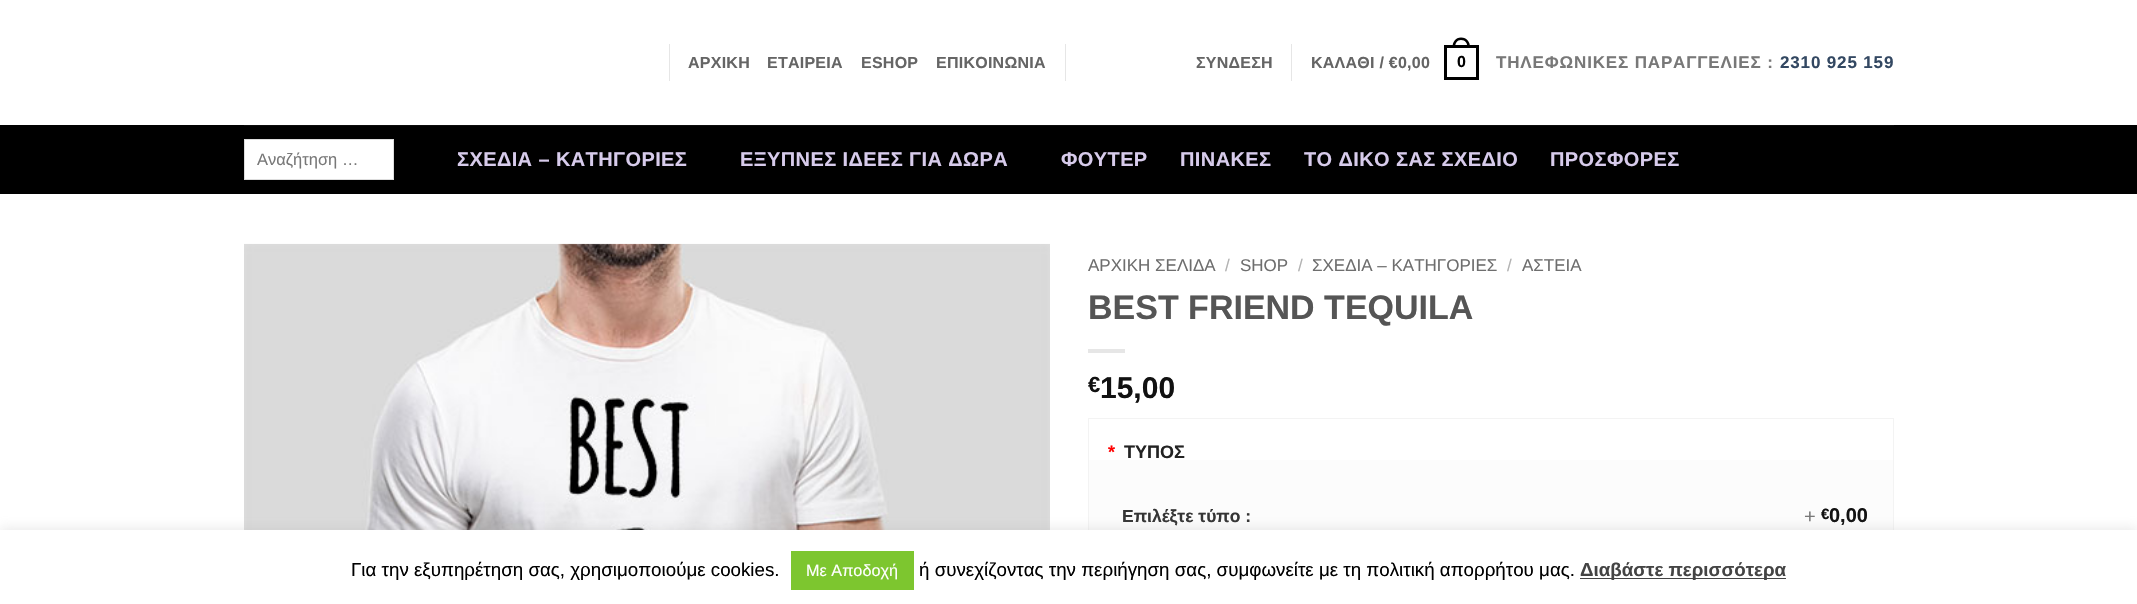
void draw(SkCanvas* c) {
SkPaint p;
p.setAntiAlias(true);
auto F=[&](const char* family, int weight, float size, bool italic = false){SkFontStyle style(weight, SkFontStyle::kNormal_Width,italic ? SkFontStyle::kItalic_Slant : SkFontStyle::kUpright_Slant);SkFont result(fontMgr->matchFamilyStyle(family, style), size);result.setSubpixel(true);return result;};
auto T=[&](const char* s, float x, float y, const SkFont& font){c->drawString(s, x, y, font, p);};
auto L=[&](const char* s, float x, float y, const SkFont& font, const SkPaint& ink, float letter, float word){std::vector<SkGlyphID> glyphs(font.countText(s, strlen(s), SkTextEncoding::kUTF8));std::vector<float> xs(glyphs.size());font.textToGlyphs(s, strlen(s), SkTextEncoding::kUTF8, glyphs);font.getXPos(glyphs, xs, x);float extra = 0;for (size_t i = 0; i < glyphs.size(); i++) {xs[i] += extra;extra += letter + word * (glyphs[i] == font.unicharToGlyph(' '));}c->drawTextBlob(SkTextBlob::MakeFromPosHGlyphs(glyphs, xs, y, font), 0, 0, ink);};
auto R=[&](float x, float y, float w, float h){c->drawRect(SkRect::MakeXYWH(x, y, w, h), p);};
auto I=[&](const char* path, float x, float y, float w, float h){auto image = SkImages::DeferredFromEncodedData(SkData::MakeFromFileName(path));c->drawImageRect(image, SkRect::MakeXYWH(x, y, w, h), SkSamplingOptions());};
auto P=[&](const char* data, bool evenOdd = false){SkPath result = *SkParsePath::FromSVGString(data);if (evenOdd) result.setFillType(SkPathFillType::kEvenOdd);return result;};
c->clear(0xffffffff);
p.setColor(0xffe6e6e6);
R(669,44,1,37);
auto f1 = F("Liberation Sans",700,16);
p.setColor(0xff656565);
L("ΑΡΧΙΚΗ",688,68,f1,p,.25,0);
L("ΕΤΑΙΡΕΙΑ",767,68,f1,p,.25,0);
L("ESHOP",861,68,f1,p,.25,0);
L("ΕΠΙΚΟΙΝΩΝΙΑ",936,68,f1,p,.25,0);
p.setColor(0xffe6e6e6);
R(1065,44,1,37);
p.setColor(0xff656565);
L("ΣΥΝΔΕΣΗ",1196,68,f1,p,.25,0);
p.setColor(0xffe6e6e6);
R(1291,44,1,37);
p.setColor(0xff656565);
L("ΚΑΛΑΘΙ / €0,00",1311,68,f1,p,.25,0);
p.setStroke(true);
p.setStrokeWidth(3);
p.setColor(0xff000000);
c->drawRect(SkRect::MakeXYWH(1445.5,46.5,32,32),p);
p.setStroke(false);
c->drawPath(P("M1461 37.5c6 0 9 4.5 9 10h-17.5c0-5.5 3-10 8.5-10zm0 2.5c4.5 0 6.5 3.5 6.5 7.5h-12.5c0-4 2-7.5 6-7.5z",true),p);
L("0",1457,67,f1,p,.25,0);
auto f2 = F("Liberation Sans",700,17);
p.setColor(0xff787878);
L("ΤΗΛΕΦΩΝΙΚΕΣ ΠΑΡΑΓΓΕΛΙΕΣ :",1496,68,f2,p,.85,0);
p.setColor(0xff334862);
L("2310 925 159",1780,68,f2,p,.85,0);
p.setColor(0xff000000);
R(0,125,2137,69);
p.setColor(0xff0c0c0c);
R(244,125,1650,1);
p.setColor(0xffffffff);
c->drawRect(SkRect::MakeXYWH(244.5,139.5,149,40),p);
p.setStroke(true);
p.setStrokeWidth(1);
p.setColor(0xffdddddd);
c->drawRect(SkRect::MakeXYWH(244.5,139.5,149,40),p);
auto f3 = F("Liberation Sans",400,16.5);
p.setStroke(false);
p.setColor(0xff787878);
T("Αναζήτηση …",257,165,f3);
auto f4 = F("Liberation Sans",700,20);
p.setColor(0xffd7cbeb);
L("ΣΧΕΔΙΑ – ΚΑΤΗΓΟΡΙΕΣ",457,166,f4,p,.4,0);
L("ΕΞΥΠΝΕΣ ΙΔΕΕΣ ΓΙΑ ΔΩΡΑ",740,166,f4,p,.4,0);
L("ΦΟΥΤΕΡ",1061,166,f4,p,.4,0);
L("ΠΙΝΑΚΕΣ",1180,166,f4,p,.4,0);
L("ΤΟ ΔΙΚΟ ΣΑΣ ΣΧΕΔΙΟ",1304,166,f4,p,.4,0);
L("ΠΡΟΣΦΟΡΕΣ",1550,166,f4,p,.4,0);
I("1.png",244,243,806,287);
auto f5 = F("Liberation Sans",400,17);
p.setColor(0xff6e6e6e);
T("ΑΡΧΙΚΗ ΣΕΛΙΔΑ",1088,271,f5);
p.setColor(0xffb2b2b2);
T("/",1225,271,f5);
p.setColor(0xff6e6e6e);
T("SHOP",1240,271,f5);
p.setColor(0xffb2b2b2);
T("/",1298,271,f5);
p.setColor(0xff6e6e6e);
T("ΣΧΕΔΙΑ – ΚΑΤΗΓΟΡΙΕΣ",1312,271,f5);
p.setColor(0xffb2b2b2);
T("/",1507,271,f5);
p.setColor(0xff6e6e6e);
T("ΑΣΤΕΙΑ",1522,271,f5);
auto f6 = F("Liberation Sans",700,34);
p.setColor(0xff555555);
T("BEST FRIEND TEQUILA",1088,319,f6);
p.setColor(0xffe6e6e6);
R(1088,349,37,4);
auto f7 = F("Liberation Sans",700,22);
p.setColor(0xff111111);
T("€",1088,392,f7);
auto f8 = F("Liberation Sans",700,30);
T("15,00",1100,398,f8);
{
const SkColor colors[] = {0xfffdfdfd,0xfffdfdfd,0xfffafafa,0xfffdfdfd};
const float stops[] = {0,.5,.5,1};
const SkPoint ends[] = {{1491,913}, {1491,419}};
p.setShader(SkGradientShader::MakeLinear(ends, colors, stops, 4, SkTileMode::kClamp));
p.setAlpha(255);
}
R(1089,460,804,70);
p.setStroke(true);
p.setShader(nullptr);
p.setColor(0xfff3f3f3);
c->drawRect(SkRect::MakeXYWH(1088.5,418.5,805,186),p);
auto f9 = F("Liberation Sans",700,18);
p.setStroke(false);
p.setColor(0xffff0101);
T("*",1108,458,f9);
p.setColor(0xff232323);
T("ΤΥΠΟΣ",1124,458,f9);
auto f10 = F("Liberation Sans",700,17.5);
p.setColor(0xff343434);
T("Επιλέξτε τύπο :",1122,522,f10);
auto f11 = F("Liberation Sans",400,20);
p.setColor(0xff787878);
T("+",1804,523,f11);
auto f12 = F("Liberation Sans",700,15);
p.setColor(0xff111111);
T("€",1821,519,f12);
T("0,00",1829,522,f4);
p.setColor(0x4dacabab);
p.setMaskFilter(SkMaskFilter::MakeBlur(kNormal_SkBlurStyle, 6));
c->drawRect(SkRect::MakeXYWH(0,529,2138,75),p);
p.setMaskFilter(nullptr);
p.setColor(0xffffffff);
R(0,530,2137,74);
auto f13 = F("Liberation Sans",400,18.75);
p.setColor(0xff000000);
T("Για την εξυπηρέτηση σας, χρησιμοποιούμε cookies.",351,576,f13);
p.setColor(0xff7dc62f);
R(791,551,123,39);
auto f14 = F("Liberation Sans",400,16.25);
p.setColor(0xffffffff);
T("Με Αποδοχή",806,576,f14);
p.setColor(0xff000000);
T("ή συνεχίζοντας την περιήγηση σας, συμφωνείτε με τη πολιτική απορρήτου μας.",919,576,f13);
p.setColor(0xff444444);
R(1580,578,206,1);
auto f15 = F("Liberation Sans",700,18.75);
T("Διαβάστε περισσότερα",1580,576,f15);
}
